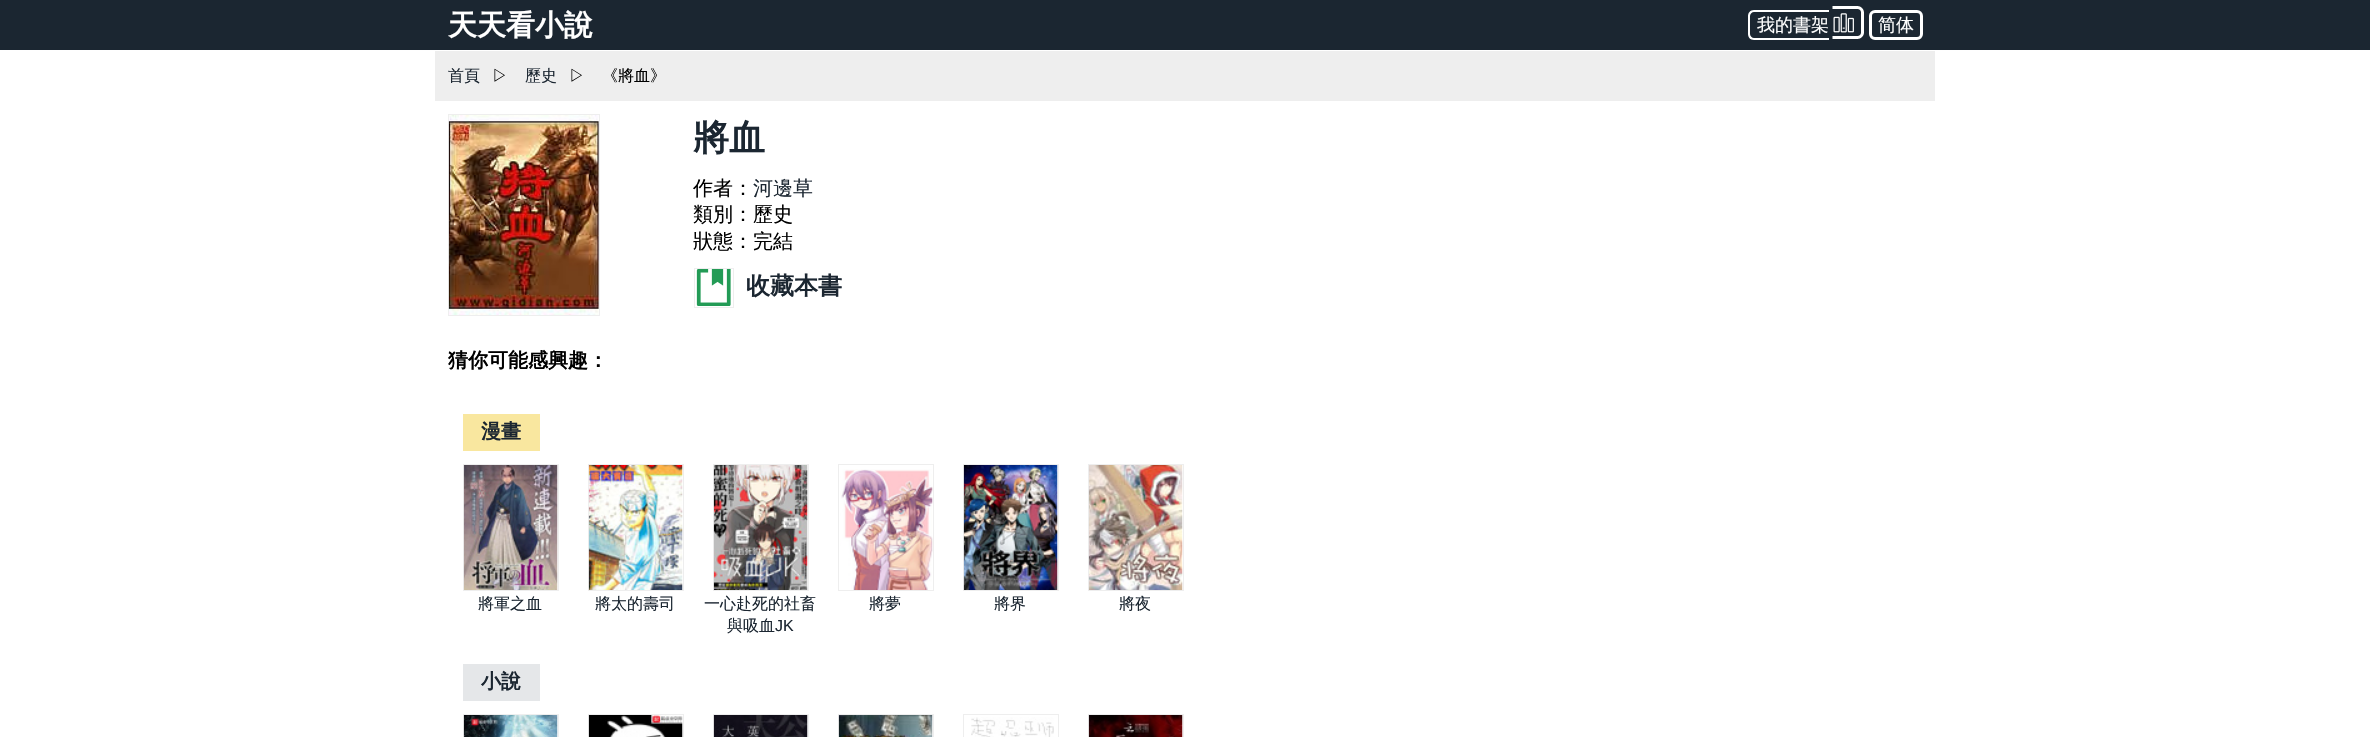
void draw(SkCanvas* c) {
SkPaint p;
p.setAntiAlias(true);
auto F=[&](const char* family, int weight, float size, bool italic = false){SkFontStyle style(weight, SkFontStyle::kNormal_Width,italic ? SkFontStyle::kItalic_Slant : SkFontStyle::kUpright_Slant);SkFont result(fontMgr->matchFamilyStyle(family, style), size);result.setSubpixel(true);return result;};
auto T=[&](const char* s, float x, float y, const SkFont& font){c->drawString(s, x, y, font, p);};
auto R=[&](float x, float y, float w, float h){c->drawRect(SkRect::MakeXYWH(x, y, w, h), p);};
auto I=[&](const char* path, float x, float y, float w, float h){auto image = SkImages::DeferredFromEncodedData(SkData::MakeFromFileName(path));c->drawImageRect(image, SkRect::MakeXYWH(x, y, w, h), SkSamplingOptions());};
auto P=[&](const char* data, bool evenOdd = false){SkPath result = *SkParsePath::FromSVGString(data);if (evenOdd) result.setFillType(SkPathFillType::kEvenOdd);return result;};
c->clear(0xffffffff);
p.setColor(0xff1b2631);
R(0,0,2370,50);
auto f1 = F("WenQuanYi Zen Hei",700,29);
p.setColor(0xffffffff);
T("天天看小說",448,35,f1);
c->drawPath(P("M1754 10h75v30h-75c-4 0-6-3-6-6v-18c0-3 2-6 6-6zm0 2h75v26h-75c-2 0-4-2-4-4v-18c0-2 2-4 4-4z",true),p);
c->drawPath(P("M1832.5 6h25c3.5 0 6.5 3 6.5 6.5v20c0 3.5-3 6.5-6.5 6.5h-25zm0 3h25c2 0 3.5 1.5 3.5 3.5v20c0 2-1.5 3.5-3.5 3.5h-25z",true),p);
auto f2 = F("WenQuanYi Zen Hei",500,18);
T("我的書架",1757,31,f2);
I("1.png",1833,13,21,20);
p.setStroke(true);
p.setStrokeWidth(3);
c->drawRoundRect(SkRect::MakeXYWH(1870.5,11.5,51,27),4.5,4.5,p);
p.setStroke(false);
T("简体",1878,31,f2);
p.setColor(0xffeeeeee);
R(435,51,1500,50);
auto f3 = F("WenQuanYi Zen Hei",500,16);
p.setColor(0xff1b2631);
T("首頁",448,81,f3);
p.setColor(0xff000000);
T("▷",492,81,f3);
p.setColor(0xff1b2631);
T("歷史",525,81,f3);
p.setColor(0xff000000);
T("▷",569,81,f3);
T("《將血》",602,81,f3);
p.setStroke(true);
p.setStrokeWidth(1);
p.setColor(0xffeeeeee);
c->drawRect(SkRect::MakeXYWH(448.5,114.5,151,201),p);
I("2.png",448,115,151,200);
auto f4 = F("WenQuanYi Zen Hei",700,36);
p.setStroke(false);
p.setColor(0xff1b2631);
T("將血",693,150,f4);
auto f5 = F("WenQuanYi Zen Hei",500,20);
p.setColor(0xff000000);
T("作者：",693,195,f5);
p.setColor(0xff1b2631);
T("河邊草",753,195,f5);
p.setColor(0xff000000);
T("類別：歷史",693,221,f5);
T("狀態：完結",693,248,f5);
p.setStroke(true);
p.setColor(0xffeeeeee);
c->drawRect(SkRect::MakeXYWH(694.5,268.5,39,39),p);
I("3.png",696,269,35,37);
auto f6 = F("WenQuanYi Zen Hei",700,24);
p.setStroke(false);
p.setColor(0xff1b2631);
T("收藏本書",746,294,f6);
auto f7 = F("WenQuanYi Zen Hei",700,20);
p.setColor(0xff000000);
T("猜你可能感興趣：",448,367,f7);
p.setColor(0xfff9e79f);
R(463,414,77,37);
p.setColor(0xff1b2631);
T("漫畫",481,438,f7);
p.setStroke(true);
p.setColor(0xffeeeeee);
c->drawRect(SkRect::MakeXYWH(463.5,464.5,95,126),p);
I("4.png",463,465,95,125);
p.setStroke(false);
p.setColor(0xff1b2631);
T("將軍之血",478,609,f3);
p.setStroke(true);
p.setColor(0xffeeeeee);
c->drawRect(SkRect::MakeXYWH(588.5,464.5,95,126),p);
I("5.png",588,465,95,125);
p.setStroke(false);
p.setColor(0xff1b2631);
T("將太的壽司",595,609,f3);
p.setStroke(true);
p.setColor(0xffeeeeee);
c->drawRect(SkRect::MakeXYWH(713.5,464.5,95,126),p);
I("6.png",713,465,95,125);
p.setStroke(false);
p.setColor(0xff1b2631);
T("一心赴死的社畜",704,609,f3);
T("與吸血",727,631,f3);
auto f8 = F("Liberation Sans",400,16);
T("JK",775,631,f8);
p.setStroke(true);
p.setColor(0xffeeeeee);
c->drawRect(SkRect::MakeXYWH(838.5,464.5,95,126),p);
I("7.png",840,469,93,121);
p.setStroke(false);
p.setColor(0xff1b2631);
T("將夢",869,609,f3);
p.setStroke(true);
p.setColor(0xffeeeeee);
c->drawRect(SkRect::MakeXYWH(963.5,464.5,95,126),p);
I("8.png",963,465,95,125);
p.setStroke(false);
p.setColor(0xff1b2631);
T("將界",994,609,f3);
p.setStroke(true);
p.setColor(0xffeeeeee);
c->drawRect(SkRect::MakeXYWH(1088.5,464.5,95,126),p);
I("9.png",1088,465,95,125);
p.setStroke(false);
p.setColor(0xff1b2631);
T("將夜",1119,609,f3);
p.setColor(0xffe5e7e9);
R(463,664,77,37);
p.setColor(0xff1b2631);
T("小說",481,688,f7);
p.setStroke(true);
p.setColor(0xffeeeeee);
c->drawRect(SkRect::MakeXYWH(463.5,714.5,95,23),p);
I("10.png",463,715,95,22);
c->drawRect(SkRect::MakeXYWH(588.5,714.5,95,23),p);
I("11.png",588,715,95,22);
c->drawRect(SkRect::MakeXYWH(713.5,714.5,95,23),p);
I("12.png",713,715,95,22);
c->drawRect(SkRect::MakeXYWH(838.5,714.5,95,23),p);
I("13.png",838,715,95,22);
c->drawRect(SkRect::MakeXYWH(963.5,714.5,95,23),p);
I("14.png",971,717,83,20);
c->drawRect(SkRect::MakeXYWH(1088.5,714.5,95,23),p);
I("15.png",1088,715,95,22);
}
